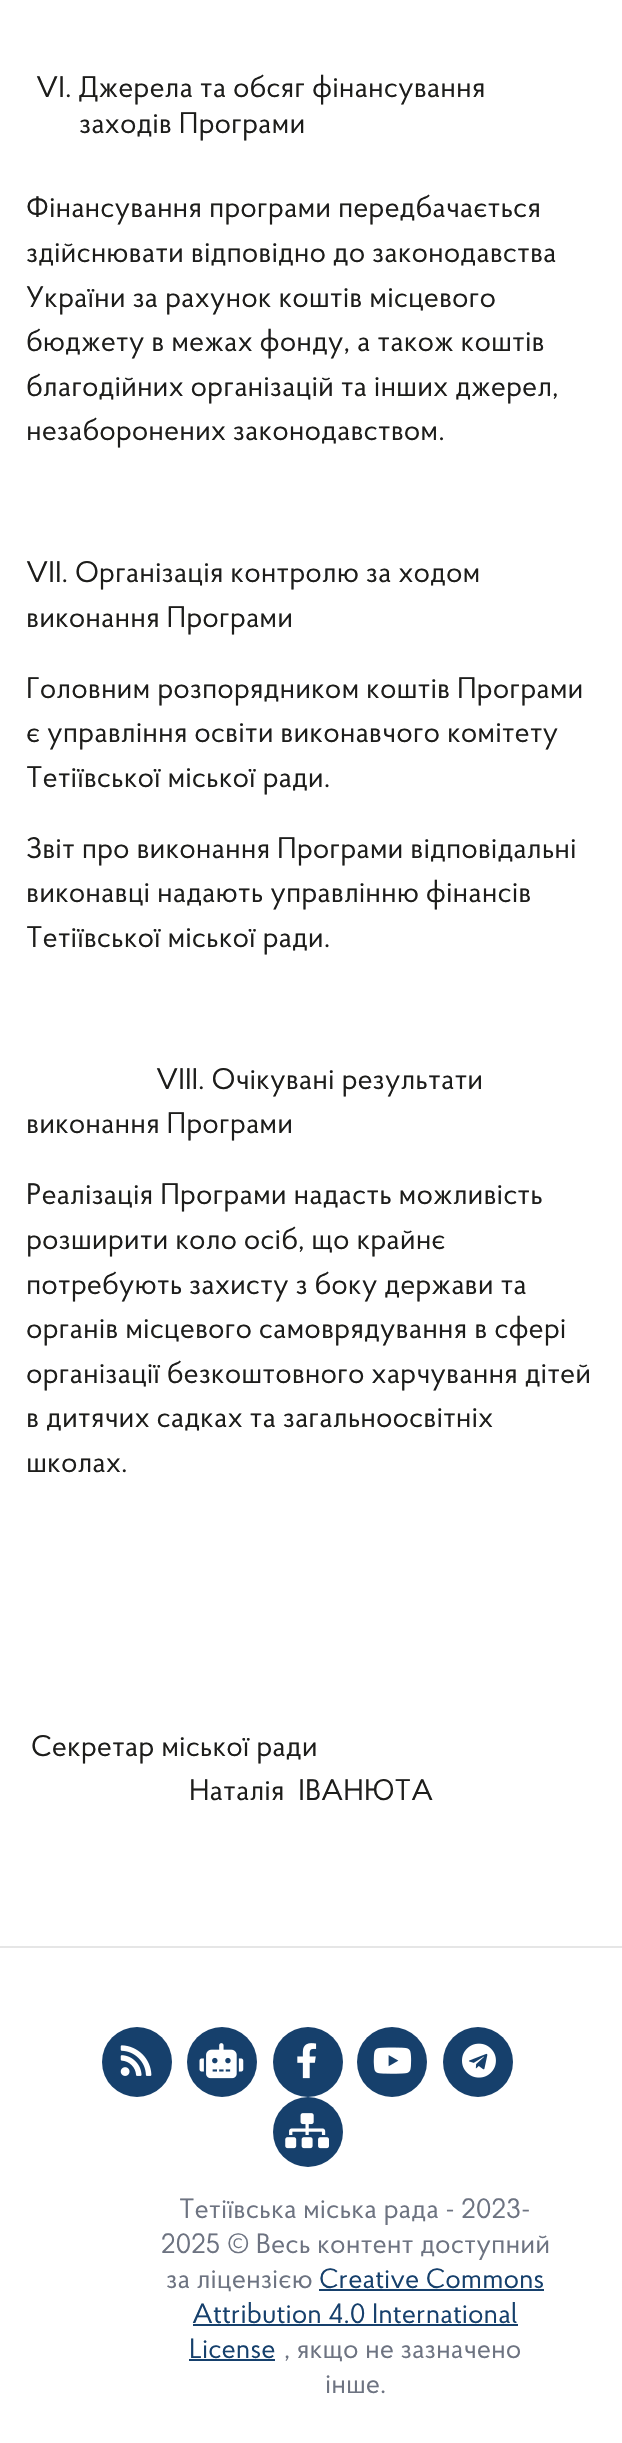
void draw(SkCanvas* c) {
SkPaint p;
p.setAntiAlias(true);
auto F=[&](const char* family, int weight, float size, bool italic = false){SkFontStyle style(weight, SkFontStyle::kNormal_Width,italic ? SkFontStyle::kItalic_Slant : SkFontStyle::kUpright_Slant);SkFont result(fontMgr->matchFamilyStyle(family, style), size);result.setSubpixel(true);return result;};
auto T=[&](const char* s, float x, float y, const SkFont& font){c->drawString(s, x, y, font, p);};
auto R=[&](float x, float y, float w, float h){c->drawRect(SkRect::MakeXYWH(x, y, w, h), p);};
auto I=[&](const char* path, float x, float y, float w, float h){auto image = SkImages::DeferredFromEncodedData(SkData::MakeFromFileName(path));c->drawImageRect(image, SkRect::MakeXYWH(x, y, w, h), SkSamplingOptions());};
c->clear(0xffffffff);
auto f1 = F("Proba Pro",400,29.75);
p.setColor(0xff1d1d1b);
T("VI. Джерела та обсяг фінансування",36,97,f1);
T("заходів Програми",79,133,f1);
T("Фінансування програми передбачається",26,217,f1);
T("здійснювати відповідно до законодавства",26,262,f1);
T("України за рахунок коштів місцевого",26,307,f1);
T("бюджету в межах фонду, а також коштів",26,351,f1);
T("благодійних організацій та інших джерел,",26,396,f1);
T("незаборонених законодавством.",26,440,f1);
T("VIІ. Організація контролю за ходом",26,582,f1);
T("виконання Програми",26,627,f1);
T("Головним розпорядником коштів Програми",26,698,f1);
T("є управління освіти виконавчого комітету",26,742,f1);
T("Тетіївської міської ради.",26,787,f1);
T("Звіт про виконання Програми відповідальні",26,858,f1);
T("виконавці надають управлінню фінансів",26,902,f1);
T("Тетіївської міської ради.",26,947,f1);
T("VIІІ. Очікувані результати",156,1089,f1);
T("виконання Програми",26,1133,f1);
T("Реалізація Програми надасть можливість",26,1204,f1);
T("розширити коло осіб, що крайнє",26,1249,f1);
T("потребують захисту з боку держави та",26,1294,f1);
T("органів місцевого самоврядування в сфері",26,1338,f1);
T("організації безкоштовного харчування дітей",26,1383,f1);
T("в дитячих садках та загальноосвітніх",26,1427,f1);
T("школах.",26,1472,f1);
T("Секретар міської ради",31,1756,f1);
T("Наталія  ІВАНЮТА",189,1800,f1);
p.setColor(0xffe6e6e6);
R(0,1946,622,2);
p.setColor(0xff16406c);
c->drawCircle(137,2062,35,p);
I("1.png",120,2045,32,31);
c->drawCircle(222,2062,35,p);
I("2.png",199,2043,45,36);
c->drawCircle(308,2062,35,p);
I("3.png",297,2043,20,36);
c->drawCircle(392,2062,35,p);
I("4.png",373,2047,39,27);
c->drawCircle(478,2062,35,p);
I("5.png",462,2043,34,35);
c->drawCircle(308,2132,35,p);
I("6.png",285,2113,44,36);
auto f2 = F("Proba Pro",400,28);
p.setColor(0xff6d7381);
T("Тетіївська міська рада - 2023-",179,2218,f2);
T("2025 © Весь контент доступний",161,2253,f2);
T("за ліцензією",166,2288,f2);
p.setColor(0xff16406c);
T("Creative Commons",319,2288,f2);
R(319,2289,225,2);
T("Attribution 4.0 International",192,2323,f2);
R(193,2324,325,2);
T("License",189,2358,f2);
R(189,2359,86,2);
p.setColor(0xff6d7381);
T(", якщо не зазначено",284,2358,f2);
T("інше.",325,2393,f2);
}
